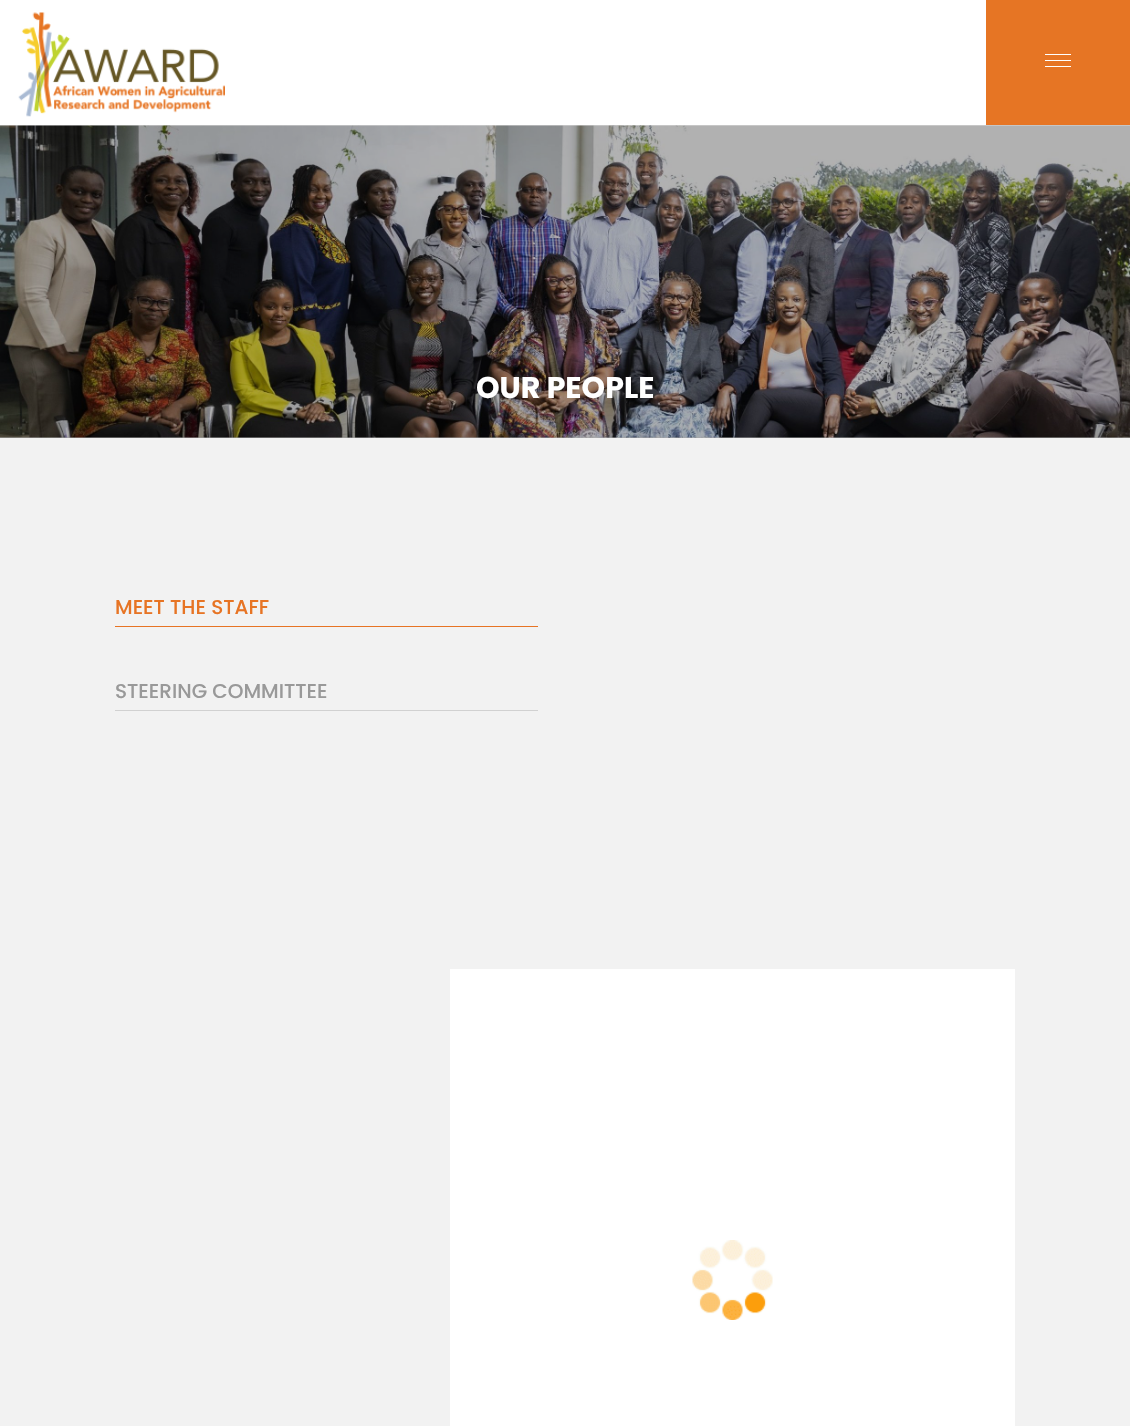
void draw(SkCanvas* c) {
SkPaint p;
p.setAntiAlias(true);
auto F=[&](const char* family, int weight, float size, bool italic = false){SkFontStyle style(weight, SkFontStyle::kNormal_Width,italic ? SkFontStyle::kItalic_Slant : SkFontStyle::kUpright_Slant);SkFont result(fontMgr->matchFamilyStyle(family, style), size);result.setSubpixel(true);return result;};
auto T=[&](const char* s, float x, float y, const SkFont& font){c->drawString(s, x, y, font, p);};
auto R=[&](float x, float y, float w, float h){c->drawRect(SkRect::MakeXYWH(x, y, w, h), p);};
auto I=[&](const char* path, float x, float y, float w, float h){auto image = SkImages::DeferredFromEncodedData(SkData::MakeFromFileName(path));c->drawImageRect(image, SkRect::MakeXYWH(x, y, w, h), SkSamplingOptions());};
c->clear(0xffffffff);
p.setColor(0xffa9a9a9);
R(0,437,1130,1);
I("2.png",0,125,1130,313);
p.setColor(0x80dbdbdb);
R(0,125,1130,1);
I("1.png",18,12,207,105);
p.setColor(0xffe67524);
R(986,0,144,125);
p.setColor(0xffffffff);
R(1045,54,26,1);
R(1045,60,26,1);
R(1045,66,26,1);
p.setColor(0xfff2f2f2);
R(0,438,1130,988);
auto f1 = F("Poppins",700,30);
p.setColor(0xffffffff);
T("OUR PEOPLE",476,398,f1);
p.setColor(0xffe77424);
R(115,626,423,1);
auto f2 = F("Poppins",500,20);
T("MEET THE STAFF",115,614,f2);
p.setColor(0xffd1d1d1);
R(115,710,423,1);
p.setColor(0xff999999);
T("STEERING COMMITTEE",115,698,f2);
p.setColor(0xffffffff);
R(450,969,565,457);
I("3.png",692,1240,81,80);
}
